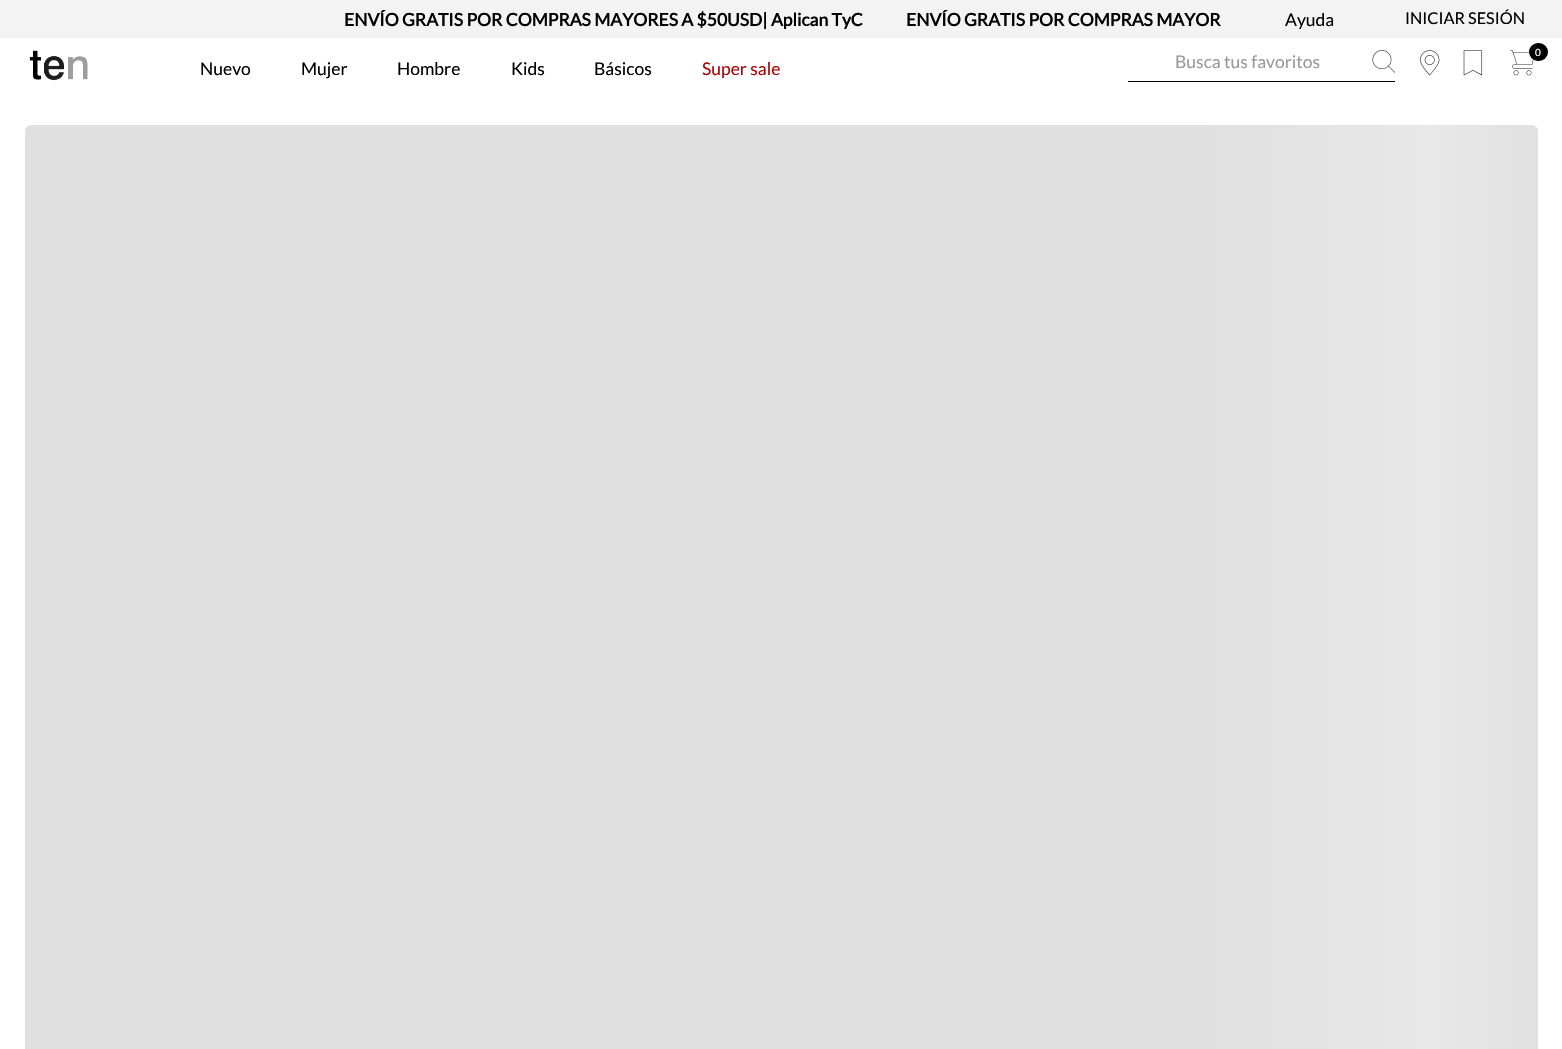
void draw(SkCanvas* c) {
SkPaint p;
p.setAntiAlias(true);
auto F=[&](const char* family, int weight, float size, bool italic = false){SkFontStyle style(weight, SkFontStyle::kNormal_Width,italic ? SkFontStyle::kItalic_Slant : SkFontStyle::kUpright_Slant);SkFont result(fontMgr->matchFamilyStyle(family, style), size);result.setSubpixel(true);return result;};
auto T=[&](const char* s, float x, float y, const SkFont& font){c->drawString(s, x, y, font, p);};
auto R=[&](float x, float y, float w, float h){c->drawRect(SkRect::MakeXYWH(x, y, w, h), p);};
auto Q=[&](float x, float y, float w, float h, float radius){c->drawRoundRect(SkRect::MakeXYWH(x, y, w, h), radius, radius, p);};
auto I=[&](const char* path, float x, float y, float w, float h){auto image = SkImages::DeferredFromEncodedData(SkData::MakeFromFileName(path));c->drawImageRect(image, SkRect::MakeXYWH(x, y, w, h), SkSamplingOptions());};
c->clear(0xffffffff);
p.setColor(0xfff3f3f3);
R(0,0,1562,38);
auto f1 = F("Lato",700,17.5);
p.setColor(0xff000000);
T("ENVÍO GRATIS POR COMPRAS MAYORES A $50USD| Aplican TyC",344,26,f1);
T("ENVÍO GRATIS POR COMPRAS MAYOR",906,26,f1);
auto f2 = F("Lato",400,17.5);
T("Ayuda",1285,26,f2);
auto f3 = F("Lato",400,16.25);
T("INICIAR SESIÓN",1405,24,f3);
I("1.png",29,50,59,31);
T("Nuevo",200,75,f2);
T("Mujer",301,75,f2);
T("Hombre",397,75,f2);
T("Kids",511,75,f2);
T("Básicos",594,75,f2);
p.setColor(0xffab0404);
T("Super sale",702,75,f2);
p.setColor(0xff000000);
R(1128,81,267,1);
p.setColor(0xff979899);
T("Busca tus favoritos",1175,68,f2);
I("2.png",1372,50,23,23);
I("3.png",1420,50,20,26);
I("4.png",1463,50,20,26);
I("5.png",1510,50,24,26);
p.setColor(0xff000000);
Q(1529,43,19,18,9);
auto f4 = F("Lato",400,10);
p.setColor(0xffffffff);
T("0",1535,56,f4);
{
const SkColor colors[] = {0xffe0e0e0,0xffe0e0e0,0xffe8e8e8,0xffe0e0e0,0xffe0e0e0};
const float stops[] = {0,.5,.6,.65,1};
const SkPoint ends[] = {{25,650}, {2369,650}};
p.setShader(SkGradientShader::MakeLinear(ends, colors, stops, 5, SkTileMode::kClamp));
p.setAlpha(255);
}
Q(25,125,1513,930,6);
}
